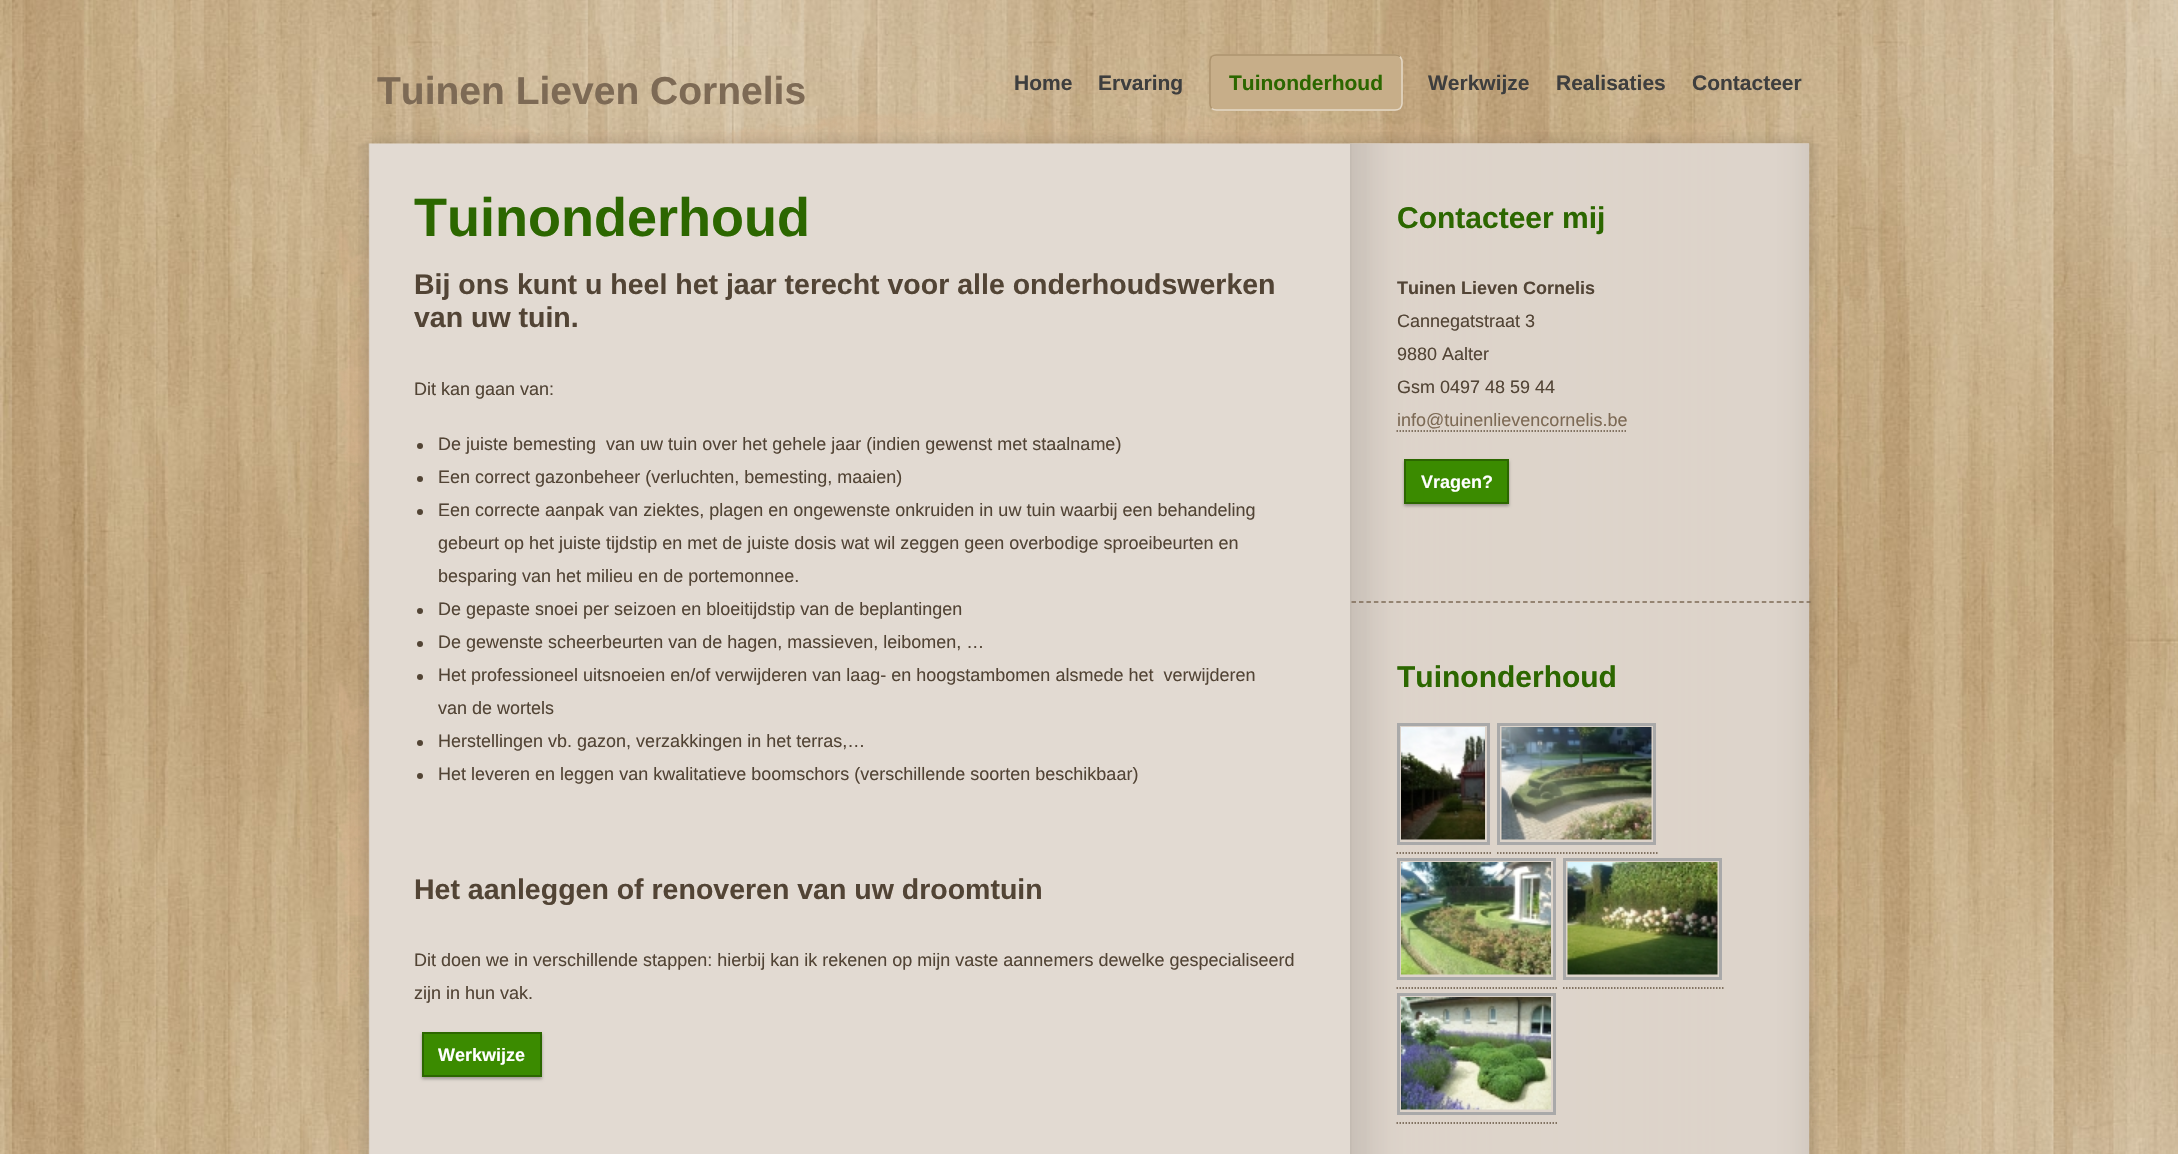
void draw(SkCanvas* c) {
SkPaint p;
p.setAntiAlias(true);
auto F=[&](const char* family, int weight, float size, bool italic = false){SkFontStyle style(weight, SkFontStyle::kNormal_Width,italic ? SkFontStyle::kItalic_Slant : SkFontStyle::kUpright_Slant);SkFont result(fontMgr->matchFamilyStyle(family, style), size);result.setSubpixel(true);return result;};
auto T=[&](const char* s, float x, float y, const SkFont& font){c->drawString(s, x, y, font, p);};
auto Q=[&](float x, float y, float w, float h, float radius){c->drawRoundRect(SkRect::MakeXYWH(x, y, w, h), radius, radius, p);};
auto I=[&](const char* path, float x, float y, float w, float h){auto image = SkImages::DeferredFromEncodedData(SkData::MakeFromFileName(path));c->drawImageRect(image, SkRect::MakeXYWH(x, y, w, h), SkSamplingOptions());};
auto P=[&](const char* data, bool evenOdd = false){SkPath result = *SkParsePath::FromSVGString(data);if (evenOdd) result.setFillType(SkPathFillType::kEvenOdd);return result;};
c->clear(0xffffffff);
I("1.png",0,0,2178,1154);
auto f1 = F("Liberation Sans",700,39);
p.setColor(0xff7d6a55);
T("Tuinen Lieven Cornelis",377,104,f1);
auto f2 = F("Liberation Sans",700,21);
p.setColor(0xff3e3e3e);
T("Home",1014,90,f2);
T("Ervaring",1098,90,f2);
I("2.png",339,110,1500,1044);
p.setColor(0xffc7ae89);
Q(1209,54,194,57,8);
p.setStroke(true);
p.setStrokeWidth(1.5);
p.setColor(0xffe5d9c7);
c->drawPath(P("M1400 56.5c1 1.5 2 3 2 5v42c0 2-1 3.5-2 5c-1.5 1-3 1.5-5 1.5h-178.5c-2 0-3.5-.5-5-1.5"),p);
p.setColor(0xffad946e);
c->drawPath(P("M1211.5 108.5c-1-1.5-1.5-3-1.5-5v-42c0-2 .5-3.5 1.5-5c1.5-1 3-1.5 5-1.5h178.5c2 0 3.5 .5 5 1.5"),p);
p.setStroke(false);
p.setColor(0xff2c6700);
T("Tuinonderhoud",1229,90,f2);
p.setColor(0xff3e3e3e);
T("Werkwijze",1428,90,f2);
T("Realisaties",1556,90,f2);
T("Contacteer",1692,90,f2);
I("3.png",365,132,1448,12);
I("4.png",358,143,1461,1011);
I("5.png",1350,143,459,1011);
auto f3 = F("Liberation Sans",700,54);
p.setColor(0xff2c6700);
T("Tuinonderhoud",414,236,f3);
auto f4 = F("Liberation Sans",700,28.5);
p.setColor(0xff524435);
T("Bij ons kunt u heel het jaar terecht voor alle onderhoudswerken",414,294,f4);
T("van uw tuin.",414,327,f4);
auto f5 = F("Liberation Sans",400,18);
T("Dit kan gaan van:",414,395,f5);
c->drawCircle(420,446,3,p);
T("De juiste bemesting  van uw tuin over het gehele jaar (indien gewenst met staalname)",438,450,f5);
c->drawCircle(420,479,3,p);
T("Een correct gazonbeheer (verluchten, bemesting, maaien)",438,483,f5);
c->drawCircle(420,512,3,p);
T("Een correcte aanpak van ziektes, plagen en ongewenste onkruiden in uw tuin waarbij een behandeling",438,516,f5);
T("gebeurt op het juiste tijdstip en met de juiste dosis wat wil zeggen geen overbodige sproeibeurten en",438,549,f5);
T("besparing van het milieu en de portemonnee.",438,582,f5);
c->drawCircle(420,611,3,p);
T("De gepaste snoei per seizoen en bloeitijdstip van de beplantingen",438,615,f5);
c->drawCircle(420,644,3,p);
T("De gewenste scheerbeurten van de hagen, massieven, leibomen, …",438,648,f5);
c->drawCircle(420,677,3,p);
T("Het professioneel uitsnoeien en/of verwijderen van laag- en hoogstambomen alsmede het  verwijderen",438,681,f5);
T("van de wortels",438,714,f5);
c->drawCircle(420,743,3,p);
T("Herstellingen vb. gazon, verzakkingen in het terras,…",438,747,f5);
c->drawCircle(420,776,3,p);
T("Het leveren en leggen van kwalitatieve boomschors (verschillende soorten beschikbaar)",438,780,f5);
T("Het aanleggen of renoveren van uw droomtuin",414,899,f4);
T("Dit doen we in verschillende stappen: hierbij kan ik rekenen op mijn vaste aannemers dewelke gespecialiseerd",414,966,f5);
T("zijn in hun vak.",414,999,f5);
p.setColor(0x4d000000);
p.setMaskFilter(SkMaskFilter::MakeBlur(kNormal_SkBlurStyle, 1.5));
c->drawRect(SkRect::MakeXYWH(422,1034,120,45),p);
p.setMaskFilter(nullptr);
p.setColor(0xff3b8b00);
c->drawRect(SkRect::MakeXYWH(423,1033,118,43),p);
p.setStroke(true);
p.setStrokeWidth(2);
p.setColor(0xff2c6700);
c->drawRect(SkRect::MakeXYWH(423,1033,118,43),p);
auto f6 = F("Liberation Sans",700,18);
p.setStroke(false);
p.setColor(0xffffffff);
T("Werkwijze",438,1061,f6);
p.setStroke(true);
p.setStrokeWidth(1.5);
p.setColor(0xff7d6a55);
p.setPathEffect(SkDashPathEffect::Make({{4.5f,2.96f}}, 0));
c->drawPath(P("M1351.5 602h459"),p);
p.setPathEffect(nullptr);
auto f7 = F("Liberation Sans",700,30);
p.setStroke(false);
p.setColor(0xff2c6700);
T("Contacteer mij",1397,228,f7);
p.setColor(0xff524435);
T("Tuinen Lieven Cornelis",1397,294,f6);
T("Cannegatstraat 3",1397,327,f5);
T("9880 Aalter",1397,360,f5);
T("Gsm 0497 48 59 44",1397,393,f5);
p.setColor(0xff7d6a55);
T("info@tuinenlievencornelis.be",1397,426,f5);
p.setStroke(true);
p.setColor(0xff645340);
p.setPathEffect(SkDashPathEffect::Make({{1.5f,1.5f}}, 0));
c->drawPath(P("M1396.5 431h231"),p);
p.setPathEffect(nullptr);
p.setStroke(false);
p.setColor(0x4d000000);
p.setMaskFilter(SkMaskFilter::MakeBlur(kNormal_SkBlurStyle, 1.5));
c->drawRect(SkRect::MakeXYWH(1404,461,105,45),p);
p.setMaskFilter(nullptr);
p.setColor(0xff3b8b00);
c->drawRect(SkRect::MakeXYWH(1405,460,103,43),p);
p.setStroke(true);
p.setStrokeWidth(2);
p.setColor(0xff2c6700);
c->drawRect(SkRect::MakeXYWH(1405,460,103,43),p);
p.setStroke(false);
p.setColor(0xffffffff);
T("Vragen?",1421,488,f6);
p.setColor(0xff2c6700);
T("Tuinonderhoud",1397,687,f7);
p.setStroke(true);
p.setStrokeWidth(3);
p.setColor(0xffa9a9a9);
c->drawRect(SkRect::MakeXYWH(1398.5,724.5,90,119),p);
c->drawRect(SkRect::MakeXYWH(1498.5,724.5,156,119),p);
I("6.png",1401,727,84,113);
I("7.png",1501,727,151,113);
p.setStrokeWidth(1.5);
p.setColor(0xff645340);
p.setPathEffect(SkDashPathEffect::Make({{1.5f,1.5f}}, 0));
c->drawPath(P("M1396.5 853h96"),p);
p.setPathEffect(nullptr);
p.setPathEffect(SkDashPathEffect::Make({{1.5f,1.5f}}, 0));
c->drawPath(P("M1497 853h162"),p);
p.setPathEffect(nullptr);
p.setStrokeWidth(3);
p.setColor(0xffa9a9a9);
c->drawRect(SkRect::MakeXYWH(1398.5,859.5,156,119),p);
c->drawRect(SkRect::MakeXYWH(1564.5,859.5,156,119),p);
I("8.png",1401,862,150,113);
I("9.png",1567,862,151,113);
p.setStrokeWidth(1.5);
p.setColor(0xff645340);
p.setPathEffect(SkDashPathEffect::Make({{1.5f,1.5f}}, 0));
c->drawPath(P("M1396.5 988h162"),p);
p.setPathEffect(nullptr);
p.setPathEffect(SkDashPathEffect::Make({{1.5f,1.5f}}, 0));
c->drawPath(P("M1563 988h162"),p);
p.setPathEffect(nullptr);
p.setStrokeWidth(3);
p.setColor(0xffa9a9a9);
c->drawRect(SkRect::MakeXYWH(1398.5,994.5,156,119),p);
I("10.png",1401,997,150,113);
p.setStrokeWidth(1.5);
p.setColor(0xff645340);
p.setPathEffect(SkDashPathEffect::Make({{1.5f,1.5f}}, 0));
c->drawPath(P("M1396.5 1123h162"),p);
p.setPathEffect(nullptr);
}
